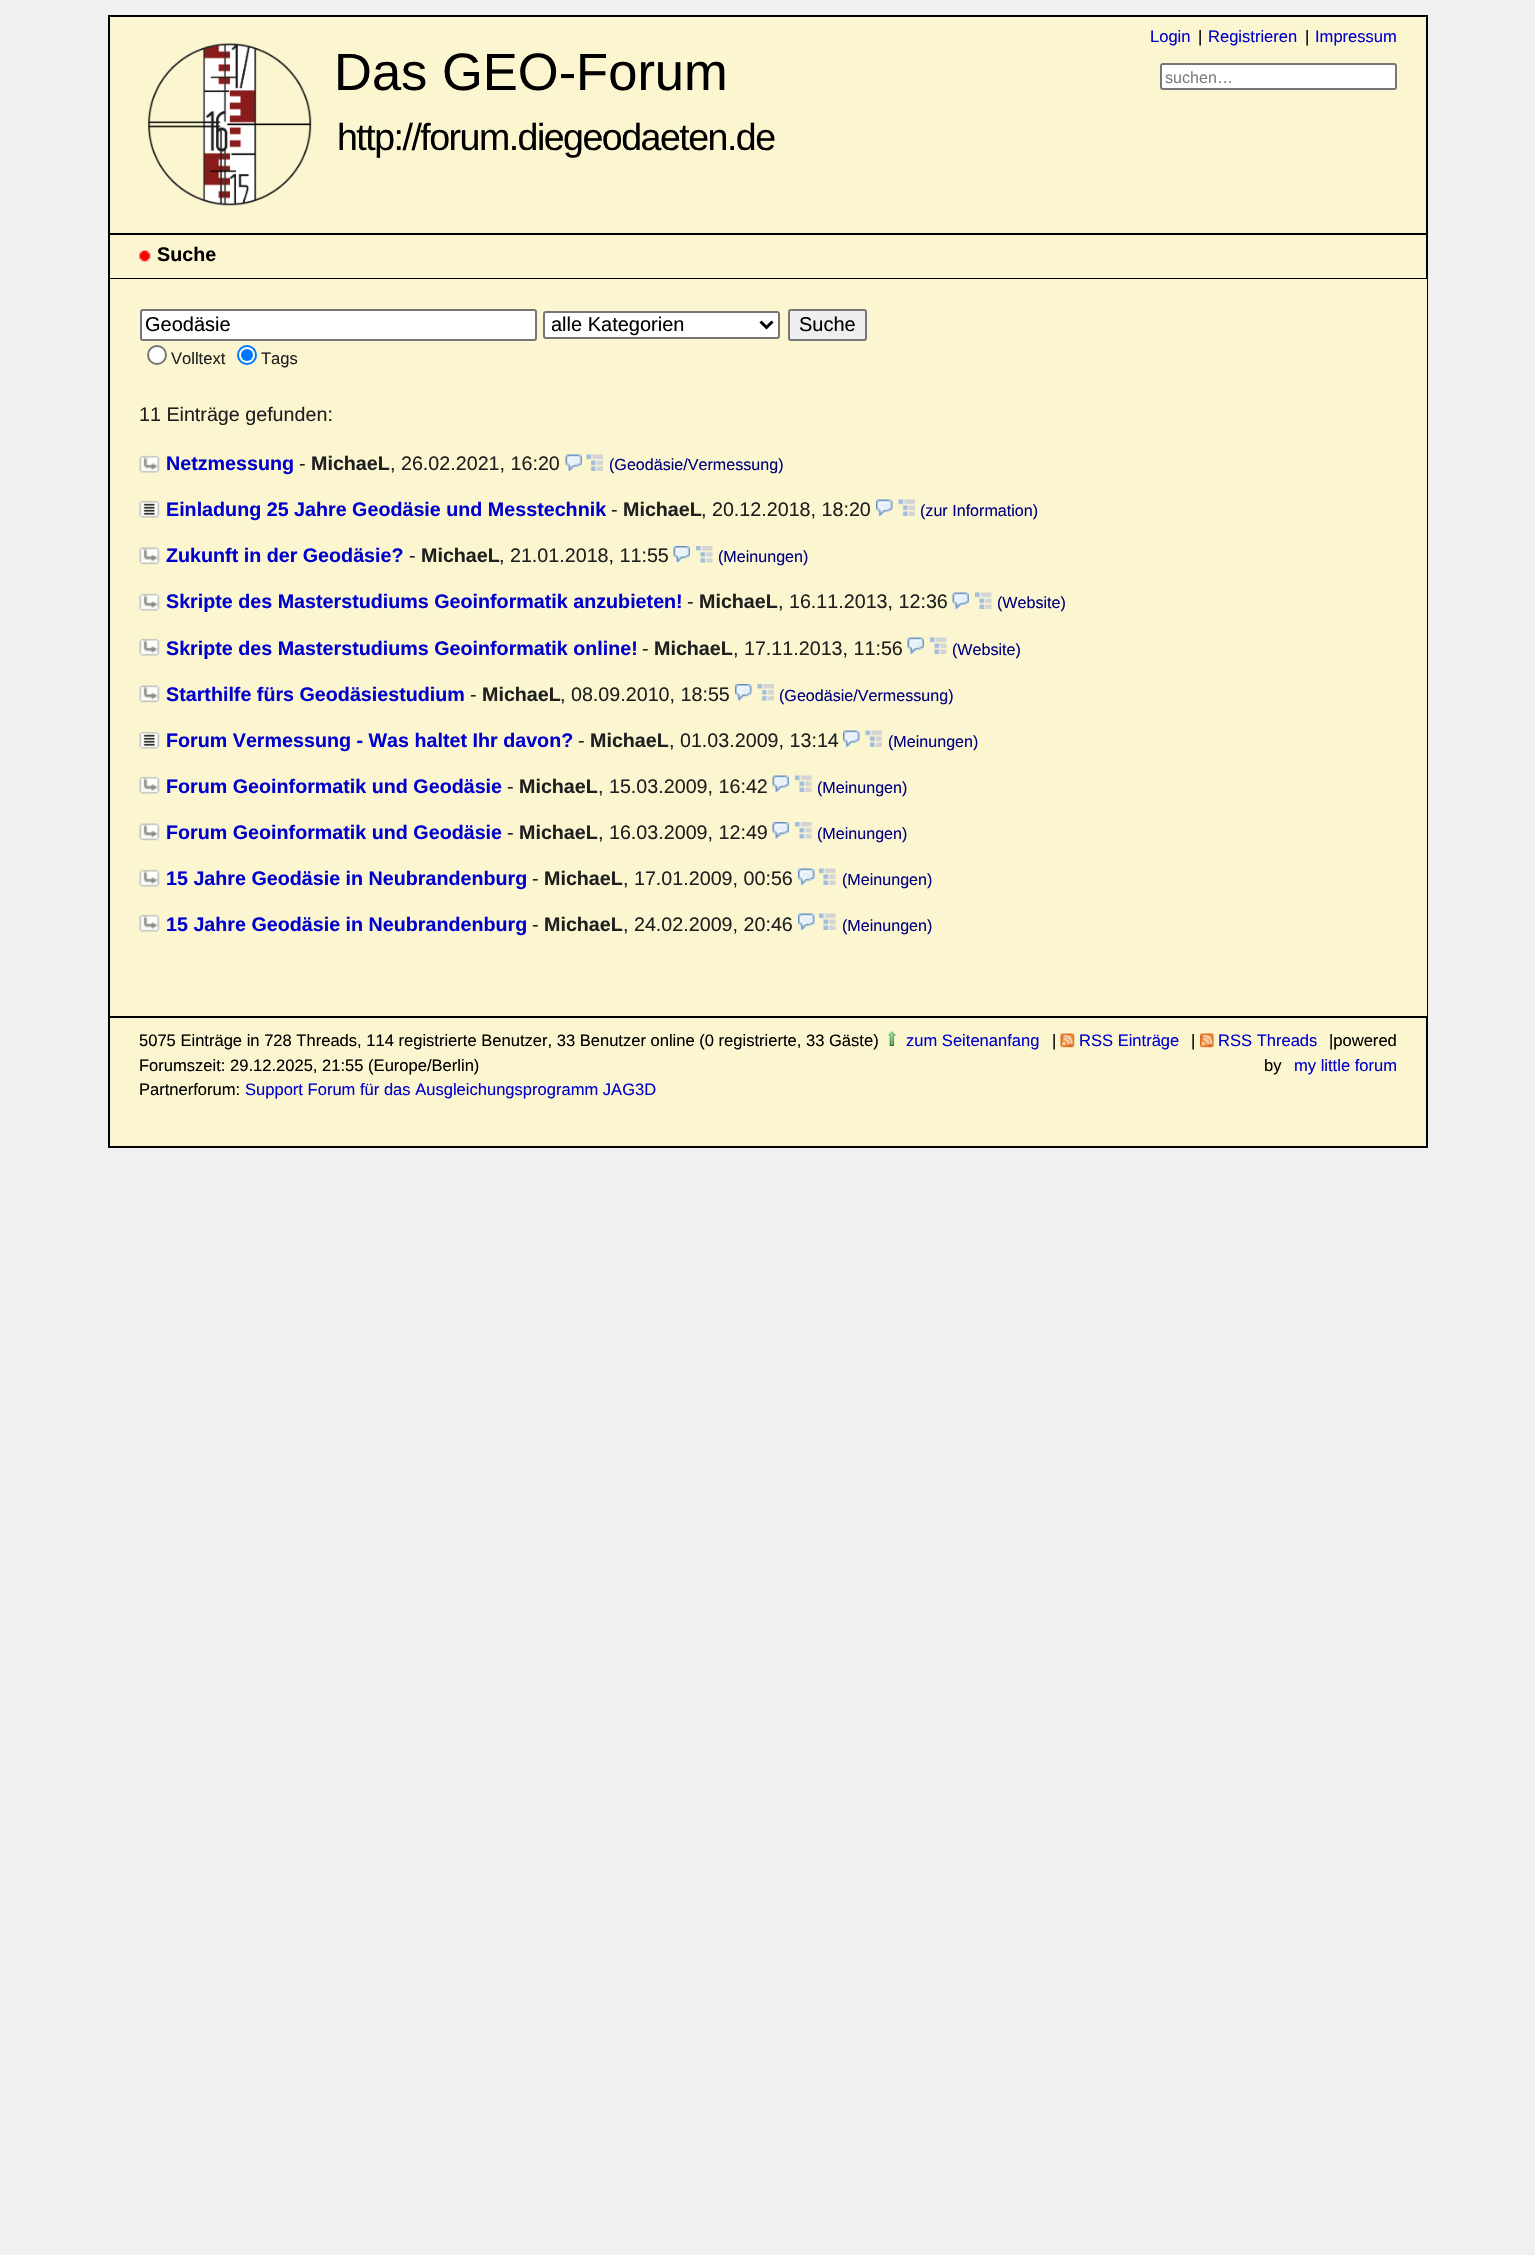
void draw(SkCanvas* c) {
SkPaint p;
p.setAntiAlias(true);
auto F=[&](const char* family, int weight, float size, bool italic = false){SkFontStyle style(weight, SkFontStyle::kNormal_Width,italic ? SkFontStyle::kItalic_Slant : SkFontStyle::kUpright_Slant);SkFont result(fontMgr->matchFamilyStyle(family, style), size);result.setSubpixel(true);return result;};
auto T=[&](const char* s, float x, float y, const SkFont& font){c->drawString(s, x, y, font, p);};
auto L=[&](const char* s, float x, float y, const SkFont& font, const SkPaint& ink, float letter, float word){std::vector<SkGlyphID> glyphs(font.countText(s, strlen(s), SkTextEncoding::kUTF8));std::vector<float> xs(glyphs.size());font.textToGlyphs(s, strlen(s), SkTextEncoding::kUTF8, glyphs);font.getXPos(glyphs, xs, x);float extra = 0;for (size_t i = 0; i < glyphs.size(); i++) {xs[i] += extra;extra += letter + word * (glyphs[i] == font.unicharToGlyph(' '));}c->drawTextBlob(SkTextBlob::MakeFromPosHGlyphs(glyphs, xs, y, font), 0, 0, ink);};
auto R=[&](float x, float y, float w, float h){c->drawRect(SkRect::MakeXYWH(x, y, w, h), p);};
auto I=[&](const char* path, float x, float y, float w, float h){auto image = SkImages::DeferredFromEncodedData(SkData::MakeFromFileName(path));c->drawImageRect(image, SkRect::MakeXYWH(x, y, w, h), SkSamplingOptions());};
auto P=[&](const char* data, bool evenOdd = false){SkPath result = *SkParsePath::FromSVGString(data);if (evenOdd) result.setFillType(SkPathFillType::kEvenOdd);return result;};
c->clear(0xfff0f0f0);
p.setColor(0xfffbf6d0);
c->drawRect(SkRect::MakeXYWH(109,16,1318,1131),p);
p.setStroke(true);
p.setStrokeWidth(2);
p.setColor(0xff000000);
c->drawRect(SkRect::MakeXYWH(109,16,1318,1131),p);
I("1.png",147,43,165,163);
auto f1 = F("Liberation Sans",400,52.5);
p.setStroke(false);
T("Das GEO-Forum",334,90,f1);
auto f2 = F("Liberation Sans",400,37.5);
L("http://forum.diegeodaeten.de",337,150,f2,p,-1.5,0);
auto f3 = F("Liberation Sans",400,16.55);
p.setColor(0xff0000cc);
T("Login",1150,42,f3);
p.setColor(0xff000000);
T("|",1198,42,f3);
p.setColor(0xff0000cc);
T("Registrieren",1208,42,f3);
p.setColor(0xff000000);
T("|",1305,42,f3);
p.setColor(0xff0000cc);
T("Impressum",1315,42,f3);
p.setColor(0xffffffff);
c->drawRoundRect(SkRect::MakeXYWH(1161,64,235,25),2,2,p);
p.setStroke(true);
p.setColor(0xff767676);
c->drawRoundRect(SkRect::MakeXYWH(1161,64,235,25),2,2,p);
auto f4 = F("Liberation Sans",400,16.1);
p.setStroke(false);
p.setColor(0xff808080);
T("suchen…",1165,83,f4);
p.setColor(0xff000000);
R(110,233,1317,2);
R(110,278,1317,1);
I("2.png",139,250,12,12);
auto f5 = F("Liberation Sans",700,19.7);
T("Suche",157,261,f5);
p.setColor(0xfffbf6d0);
R(1426,279,1,737);
p.setColor(0xffffffff);
c->drawRoundRect(SkRect::MakeXYWH(141,310,395,30),2,2,p);
p.setStroke(true);
p.setColor(0xff767676);
c->drawRoundRect(SkRect::MakeXYWH(141,310,395,30),2,2,p);
auto f6 = F("Liberation Sans",400,20);
p.setStroke(false);
p.setColor(0xff000000);
T("Geodäsie",145,331,f6);
p.setColor(0xffffffff);
c->drawRoundRect(SkRect::MakeXYWH(544,312,235,26),2,2,p);
p.setStroke(true);
p.setColor(0xff767676);
c->drawRoundRect(SkRect::MakeXYWH(544,312,235,26),2,2,p);
p.setStrokeWidth(3);
p.setColor(0xff000000);
c->drawPath(P("M760.5 321.5l6 6l6-6"),p);
p.setStroke(false);
T("alle Kategorien",551,331,f6);
p.setColor(0xffefefef);
c->drawRoundRect(SkRect::MakeXYWH(789,310,77,30),2,2,p);
p.setStroke(true);
p.setStrokeWidth(2);
p.setColor(0xff767676);
c->drawRoundRect(SkRect::MakeXYWH(789,310,77,30),2,2,p);
p.setStroke(false);
p.setColor(0xff000000);
T("Suche",799,331,f6);
p.setColor(0xffffffff);
c->drawCircle(157,355,9,p);
p.setStroke(true);
p.setColor(0xff767676);
c->drawCircle(157,355,9,p);
p.setStroke(false);
p.setColor(0xff1f1f1f);
T("Volltext",171,364,f3);
p.setColor(0xffffffff);
c->drawCircle(247,355,9,p);
p.setStroke(true);
p.setColor(0xff0075ff);
c->drawCircle(247,355,9,p);
p.setStroke(false);
c->drawCircle(247,355,6,p);
p.setColor(0xff1f1f1f);
T("Tags",261,364,f3);
auto f7 = F("Liberation Sans",400,19.7);
T("11 Einträge gefunden:",139,421,f7);
I("3.png",139,455,21,18);
p.setColor(0xff0000cc);
T("Netzmessung",166,470,f5);
p.setColor(0xff1f1f1f);
T("-",299,470,f7);
T("MichaeL",311,470,f5);
T(", 26.02.2021, 16:20",390,470,f7);
I("4.png",565,454,17,17);
I("5.png",586,454,17,17);
p.setColor(0xff000080);
T("(Geodäsie/Vermessung)",609,470,f4);
I("6.png",139,500,21,18);
p.setColor(0xff0000cc);
T("Einladung 25 Jahre Geodäsie und Messtechnik",166,516,f5);
p.setColor(0xff1f1f1f);
T("-",611,516,f7);
T("MichaeL",623,516,f5);
T(", 20.12.2018, 18:20",701,516,f7);
I("7.png",876,499,17,17);
I("8.png",898,499,17,17);
p.setColor(0xff000080);
T("(zur Information)",920,516,f4);
I("9.png",139,547,21,18);
p.setColor(0xff0000cc);
T("Zukunft in der Geodäsie?",166,562,f5);
p.setColor(0xff1f1f1f);
T("-",409,562,f7);
T("MichaeL",421,562,f5);
T(", 21.01.2018, 11:55",499,562,f7);
I("10.png",673,546,17,17);
I("11.png",696,546,17,17);
p.setColor(0xff000080);
T("(Meinungen)",718,562,f4);
I("3.png",139,593,21,18);
p.setColor(0xff0000cc);
T("Skripte des Masterstudiums Geoinformatik anzubieten!",166,608,f5);
p.setColor(0xff1f1f1f);
T("-",687,608,f7);
T("MichaeL",699,608,f5);
T(", 16.11.2013, 12:36",778,608,f7);
I("12.png",952,592,17,17);
I("13.png",975,592,17,17);
p.setColor(0xff000080);
T("(Website)",997,608,f4);
I("3.png",139,638,21,18);
p.setColor(0xff0000cc);
T("Skripte des Masterstudiums Geoinformatik online!",166,655,f5);
p.setColor(0xff1f1f1f);
T("-",642,655,f7);
T("MichaeL",654,655,f5);
T(", 17.11.2013, 11:56",733,655,f7);
I("12.png",907,637,17,17);
I("13.png",930,637,17,17);
p.setColor(0xff000080);
T("(Website)",952,655,f4);
I("9.png",139,685,21,18);
p.setColor(0xff0000cc);
T("Starthilfe fürs Geodäsiestudium",166,701,f5);
p.setColor(0xff1f1f1f);
T("-",470,701,f7);
T("MichaeL",482,701,f5);
T(", 08.09.2010, 18:55",560,701,f7);
I("14.png",735,684,17,17);
I("15.png",757,684,17,17);
p.setColor(0xff000080);
T("(Geodäsie/Vermessung)",779,701,f4);
I("6.png",139,731,21,18);
p.setColor(0xff0000cc);
T("Forum Vermessung - Was haltet Ihr davon?",166,747,f5);
p.setColor(0xff1f1f1f);
T("-",578,747,f7);
T("MichaeL",590,747,f5);
T(", 01.03.2009, 13:14",669,747,f7);
I("7.png",843,730,17,17);
I("8.png",865,730,17,17);
p.setColor(0xff000080);
T("(Meinungen)",888,747,f4);
I("3.png",139,776,21,18);
p.setColor(0xff0000cc);
T("Forum Geoinformatik und Geodäsie",166,793,f5);
p.setColor(0xff1f1f1f);
T("-",507,793,f7);
T("MichaeL",519,793,f5);
T(", 15.03.2009, 16:42",598,793,f7);
I("12.png",772,775,17,17);
I("13.png",795,775,17,17);
p.setColor(0xff000080);
T("(Meinungen)",817,793,f4);
I("9.png",139,823,21,18);
p.setColor(0xff0000cc);
T("Forum Geoinformatik und Geodäsie",166,839,f5);
p.setColor(0xff1f1f1f);
T("-",507,839,f7);
T("MichaeL",519,839,f5);
T(", 16.03.2009, 12:49",598,839,f7);
I("16.png",772,822,17,17);
I("11.png",795,822,17,17);
p.setColor(0xff000080);
T("(Meinungen)",817,839,f4);
I("3.png",139,869,21,18);
p.setColor(0xff0000cc);
T("15 Jahre Geodäsie in Neubrandenburg",166,885,f5);
p.setColor(0xff1f1f1f);
T("-",532,885,f7);
T("MichaeL",544,885,f5);
T(", 17.01.2009, 00:56",623,885,f7);
I("7.png",798,868,17,17);
I("13.png",819,868,17,17);
p.setColor(0xff000080);
T("(Meinungen)",842,885,f4);
I("3.png",139,914,21,18);
p.setColor(0xff0000cc);
T("15 Jahre Geodäsie in Neubrandenburg",166,931,f5);
p.setColor(0xff1f1f1f);
T("-",532,931,f7);
T("MichaeL",544,931,f5);
T(", 24.02.2009, 20:46",623,931,f7);
I("7.png",798,913,17,17);
I("13.png",819,913,17,17);
p.setColor(0xff000080);
T("(Meinungen)",842,931,f4);
p.setColor(0xff000000);
R(110,1016,1317,2);
T("5075 Einträge in 728 Threads, 114 registrierte Benutzer, 33 Benutzer online (0 registrierte, 33 Gäste)",139,1046,f3);
T("Forumszeit: 29.12.2025, 21:55 (Europe/Berlin)",139,1071,f3);
T("Partnerforum:",139,1095,f3);
p.setColor(0xff0000cc);
T("Support Forum für das Ausgleichungsprogramm JAG3D",245,1095,f3);
I("17.png",887,1031,9,15);
T("zum Seitenanfang",906,1046,f3);
p.setColor(0xff000000);
T("|",1052,1046,f3);
I("18.png",1060,1033,15,15);
p.setColor(0xff0000cc);
T("RSS Einträge",1079,1046,f3);
p.setColor(0xff000000);
T("|",1191,1046,f3);
I("19.png",1200,1033,14,15);
p.setColor(0xff0000cc);
T("RSS Threads",1218,1046,f3);
p.setColor(0xff000000);
T("|powered",1329,1046,f3);
T("by",1264,1071,f3);
p.setColor(0xff0000cc);
T("my little forum",1294,1071,f3);
}
